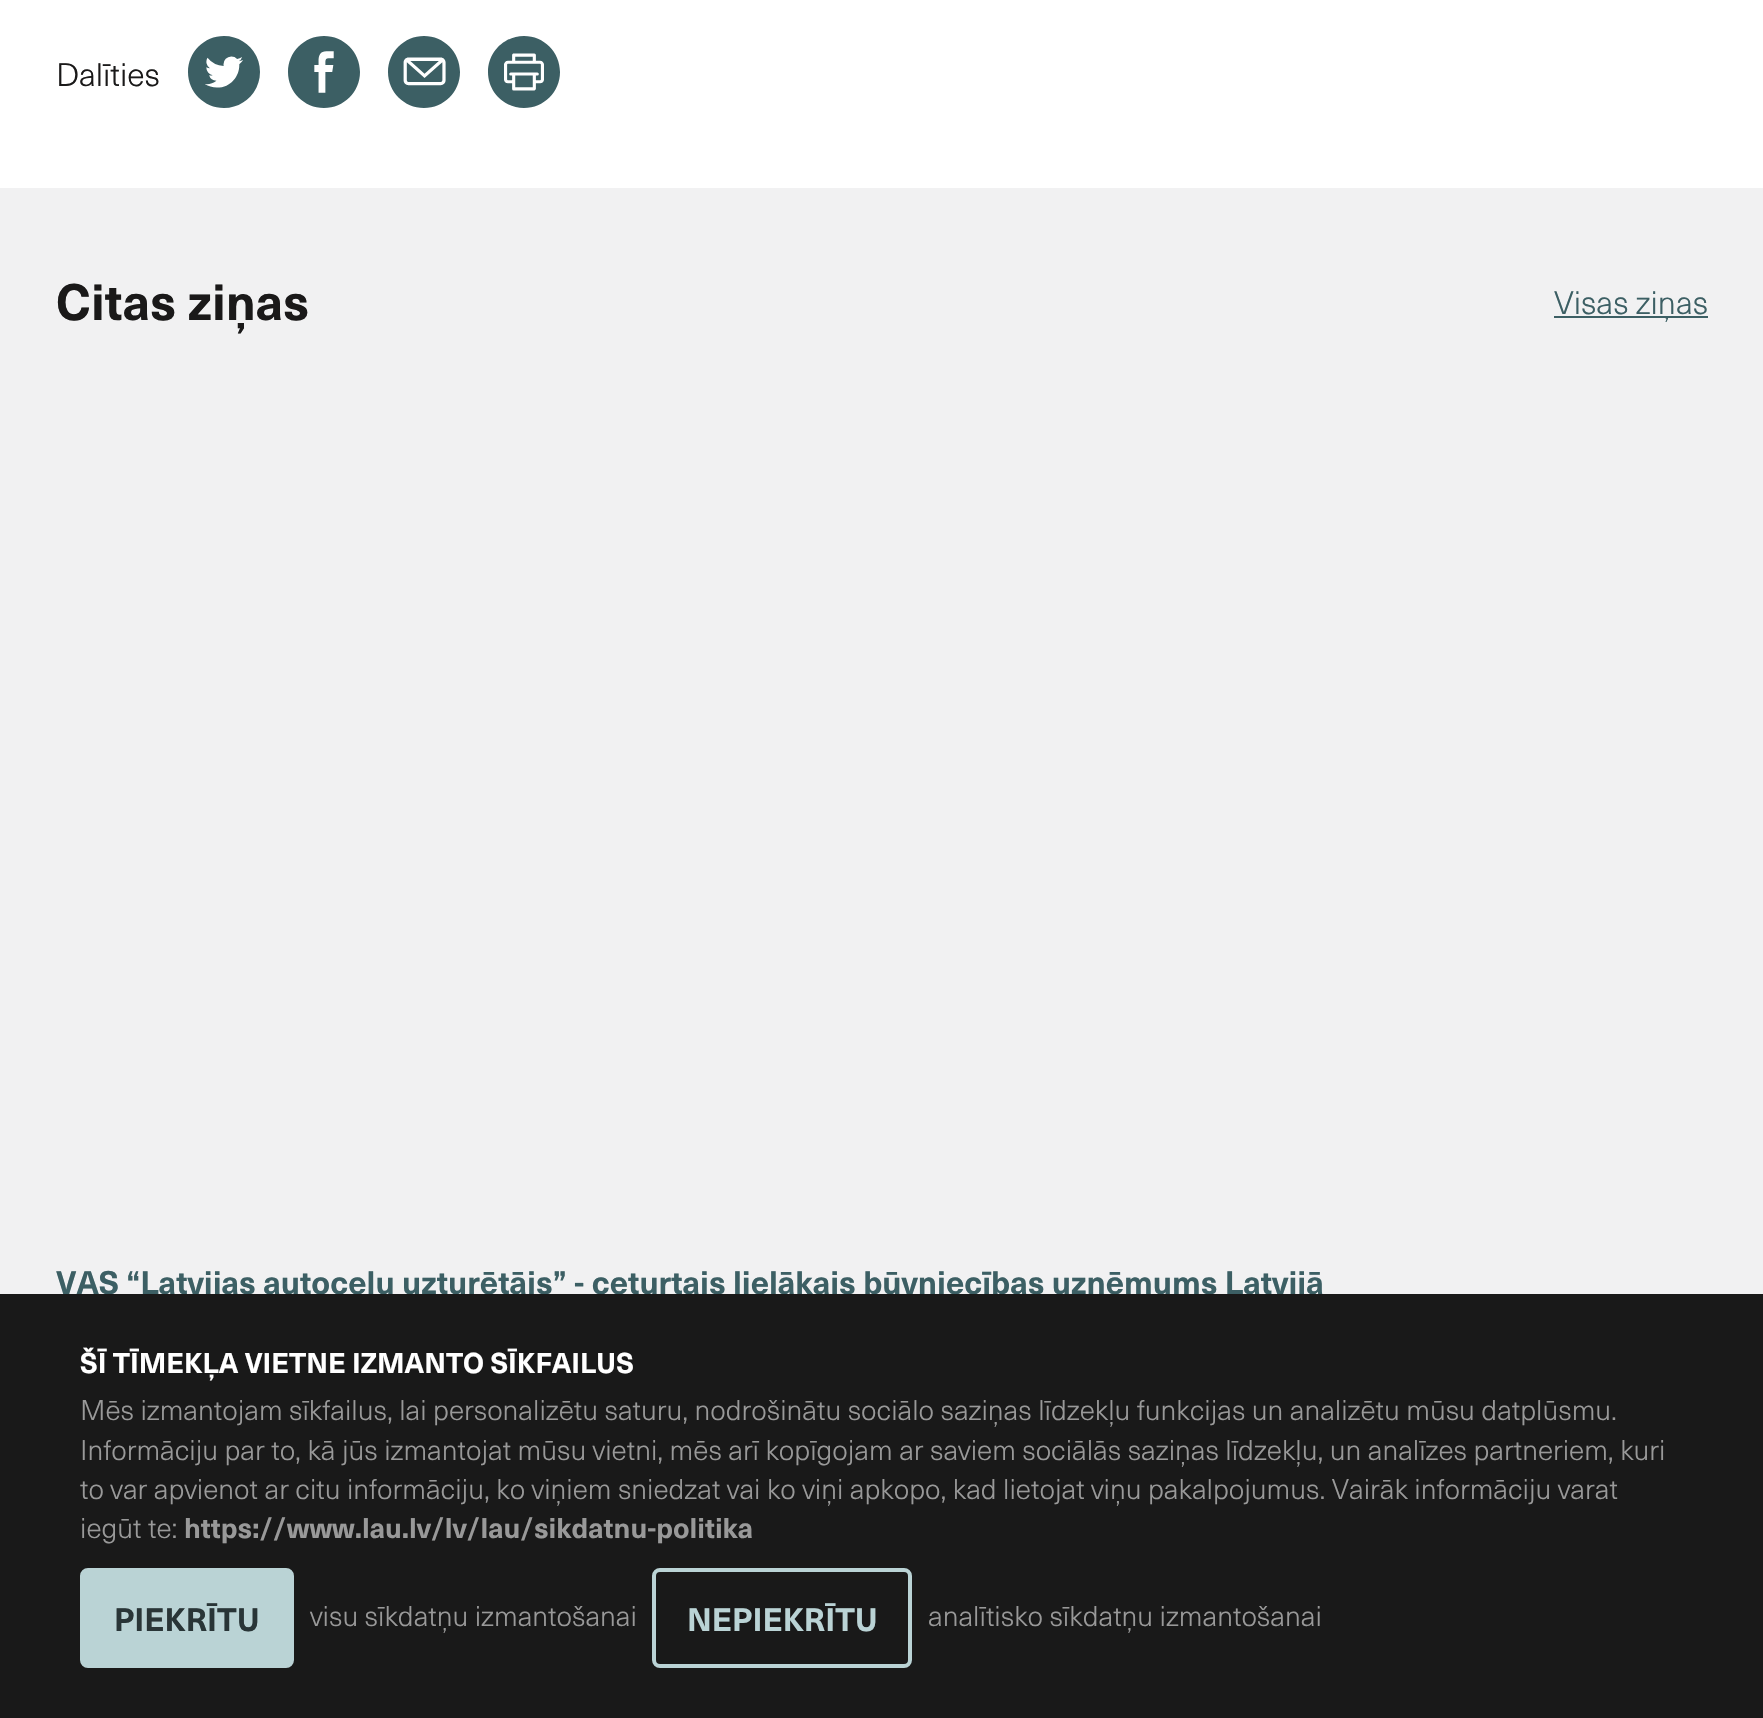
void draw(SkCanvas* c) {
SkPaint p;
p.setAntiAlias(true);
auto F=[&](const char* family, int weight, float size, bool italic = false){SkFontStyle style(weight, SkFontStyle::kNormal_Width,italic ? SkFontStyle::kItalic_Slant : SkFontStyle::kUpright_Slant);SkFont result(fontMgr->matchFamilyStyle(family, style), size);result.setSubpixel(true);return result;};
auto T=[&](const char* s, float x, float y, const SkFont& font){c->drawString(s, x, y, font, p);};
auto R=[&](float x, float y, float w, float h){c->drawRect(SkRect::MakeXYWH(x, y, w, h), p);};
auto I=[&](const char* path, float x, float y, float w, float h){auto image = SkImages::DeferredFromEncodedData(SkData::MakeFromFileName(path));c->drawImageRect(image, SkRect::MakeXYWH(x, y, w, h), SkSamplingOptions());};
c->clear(0xffffffff);
auto f1 = F("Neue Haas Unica",300,32);
p.setColor(0xff1a1919);
T("Dalīties",56,86,f1);
I("1.png",188,36,72,72);
I("2.png",288,36,72,72);
I("3.png",388,36,72,72);
I("4.png",488,36,72,72);
p.setColor(0xfff1f1f2);
R(0,188,1763,1106);
auto f2 = F("Neue Haas Unica",700,50);
p.setColor(0xff1a1919);
T("Citas ziņas",56,320,f2);
p.setColor(0xff3c5f64);
R(1554,316,154,2);
T("Visas ziņas",1554,314,f1);
auto f3 = F("Neue Haas Unica",700,32);
T("VAS “Latvijas autoceļu uzturētājs” - ceturtais lielākais būvniecības uzņēmums Latvijā",56,1294,f3);
p.setColor(0xff191919);
R(0,1294,1763,424);
auto f4 = F("Neue Haas Unica",700,28);
p.setColor(0xffffffff);
T("ŠĪ TĪMEKĻA VIETNE IZMANTO SĪKFAILUS",80,1373,f4);
auto f5 = F("Neue Haas Unica",300,28);
p.setColor(0xff999999);
T("Mēs izmantojam sīkfailus, lai personalizētu saturu, nodrošinātu sociālo saziņas līdzekļu funkcijas un analizētu mūsu datplūsmu.",80,1420,f5);
T("Informāciju par to, kā jūs izmantojat mūsu vietni, mēs arī kopīgojam ar saviem sociālās saziņas līdzekļu, un analīzes partneriem, kuri",80,1460,f5);
T("to var apvienot ar citu informāciju, ko viņiem sniedzat vai ko viņi apkopo, kad lietojat viņu pakalpojumus. Vairāk informāciju varat",80,1499,f5);
T("iegūt te:",80,1538,f5);
T("https://www.lau.lv/lv/lau/sikdatnu-politika",184,1538,f4);
p.setColor(0xffbad3d5);
c->drawRoundRect(SkRect::MakeXYWH(82,1570,210,96),6,6,p);
p.setStroke(true);
p.setStrokeWidth(4);
c->drawRoundRect(SkRect::MakeXYWH(82,1570,210,96),6,6,p);
p.setStroke(false);
p.setColor(0xff293537);
T("PIEKRĪTU",114,1631,f3);
p.setColor(0xff999999);
T("visu sīkdatņu izmantošanai",310,1626,f5);
p.setStroke(true);
p.setColor(0xffbad3d5);
c->drawRoundRect(SkRect::MakeXYWH(654,1570,256,96),6,6,p);
p.setStroke(false);
T("NEPIEKRĪTU",687,1631,f3);
p.setColor(0xff999999);
T("analītisko sīkdatņu izmantošanai",928,1626,f5);
}
